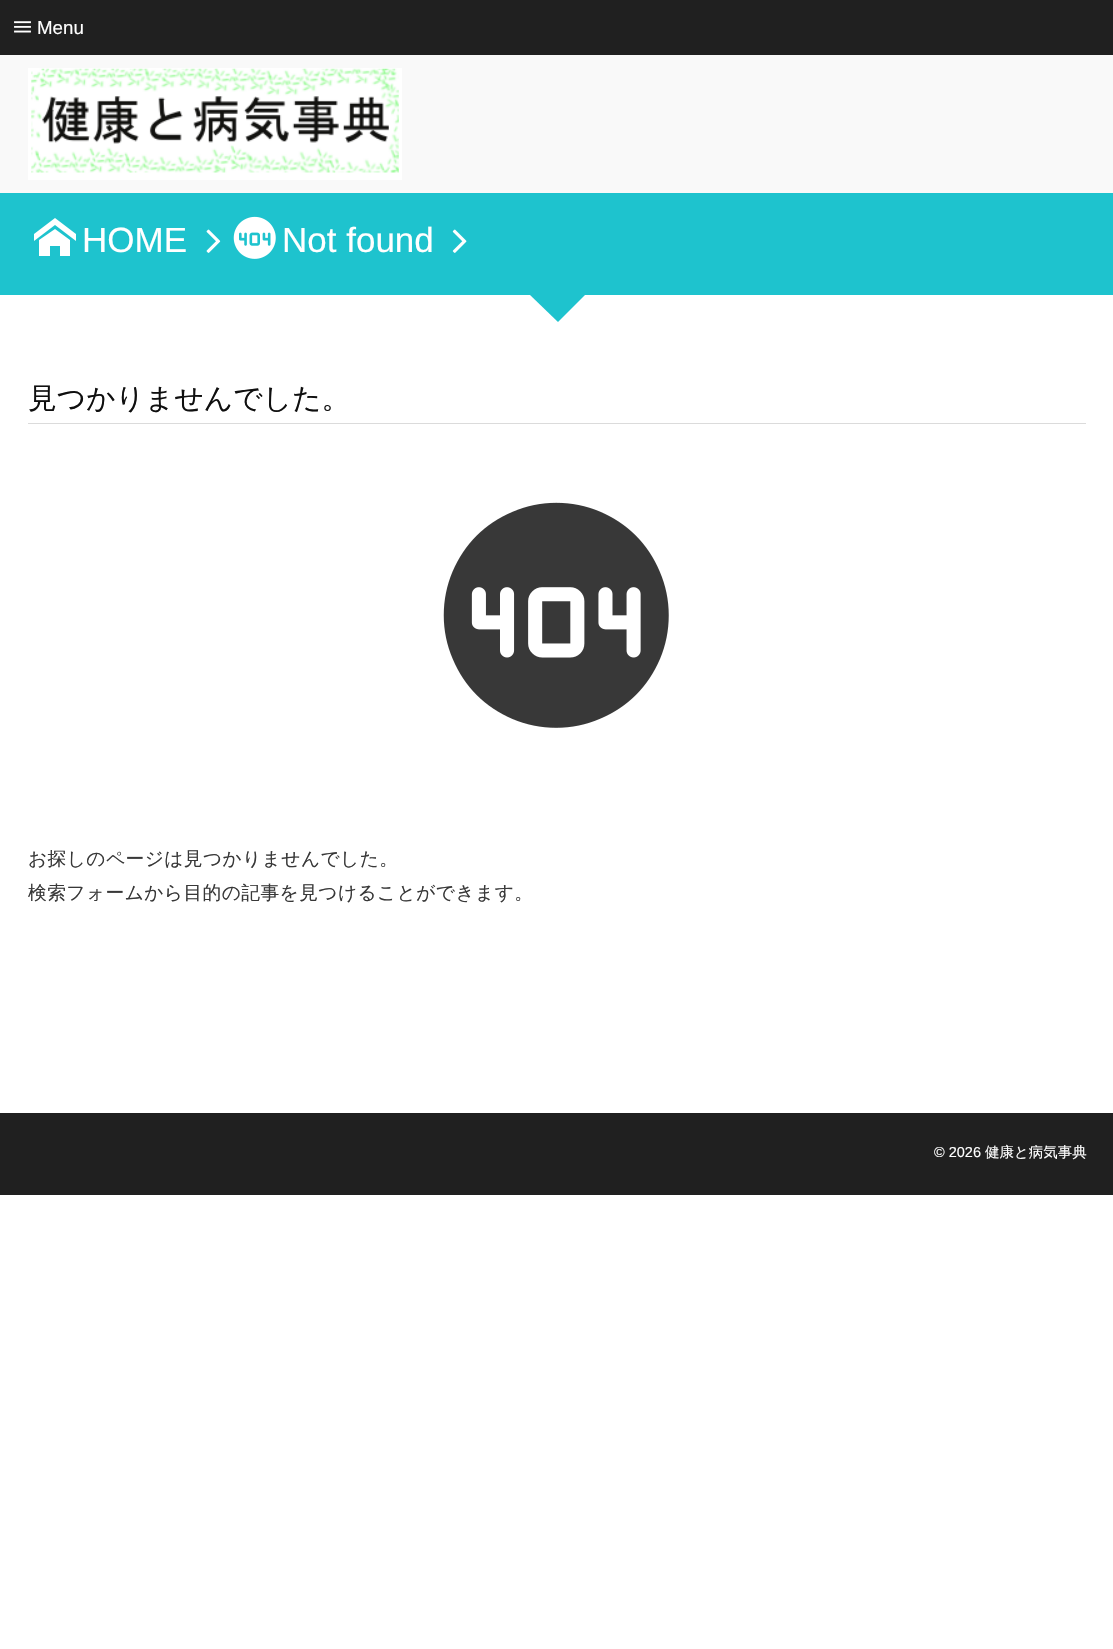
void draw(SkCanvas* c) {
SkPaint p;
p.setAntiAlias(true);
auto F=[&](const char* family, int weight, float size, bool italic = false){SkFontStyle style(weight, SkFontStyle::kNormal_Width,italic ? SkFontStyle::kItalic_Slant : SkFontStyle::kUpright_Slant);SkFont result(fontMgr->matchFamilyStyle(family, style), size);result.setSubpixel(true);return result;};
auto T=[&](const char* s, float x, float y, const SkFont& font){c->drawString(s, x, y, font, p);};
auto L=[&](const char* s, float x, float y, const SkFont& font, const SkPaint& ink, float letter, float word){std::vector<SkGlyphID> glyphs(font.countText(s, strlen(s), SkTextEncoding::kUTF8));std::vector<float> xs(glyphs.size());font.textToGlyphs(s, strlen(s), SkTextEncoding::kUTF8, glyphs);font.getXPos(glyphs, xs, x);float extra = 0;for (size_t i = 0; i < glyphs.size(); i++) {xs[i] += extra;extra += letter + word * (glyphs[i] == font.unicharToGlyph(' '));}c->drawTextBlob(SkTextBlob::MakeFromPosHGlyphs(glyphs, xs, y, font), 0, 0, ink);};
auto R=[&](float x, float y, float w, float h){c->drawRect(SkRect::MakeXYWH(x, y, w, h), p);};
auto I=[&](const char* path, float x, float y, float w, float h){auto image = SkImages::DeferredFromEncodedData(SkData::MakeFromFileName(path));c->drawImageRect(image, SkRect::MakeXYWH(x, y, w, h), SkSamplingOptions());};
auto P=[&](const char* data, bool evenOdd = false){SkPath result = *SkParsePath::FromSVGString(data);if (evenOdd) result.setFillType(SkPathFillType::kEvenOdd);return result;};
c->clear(0xffffffff);
p.setColor(0xfff9f9f9);
R(0,55,1113,138);
p.setColor(0xff202020);
R(0,0,1113,55);
I("1.png",14,21,17,12);
auto f1 = F("Liberation Sans",400,18.75);
p.setColor(0xffffffff);
T("Menu",37,34,f1);
I("2.png",28,68,374,112);
p.setColor(0xff1ec3ce);
R(0,193,1113,102);
auto f2 = F("Liberation Sans",400,35);
p.setColor(0xffffffff);
T("HOME",82,252,f2);
c->drawPath(P("M76 241l-21-16l-21 16v-7l21-16l21 16zm-6-1v16h-10v-10h-10v10h-11v-16l16-11z"),p);
I("3.png",206,229,15,24);
I("4.png",233,216,43,43);
T("Not found",282,252,f2);
I("5.png",452,229,15,24);
p.setColor(0xff1ec3ce);
c->drawPath(P("M530 295h55l-27 27z"),p);
p.setColor(0xffdbdbdb);
R(28,423,1058,1);
auto f3 = F("WenQuanYi Zen Hei",500,28.75);
p.setColor(0xff0f0f0f);
T("見つかりませんでした。",28,408,f3);
I("6.png",443,502,226,226);
auto f4 = F("WenQuanYi Zen Hei",500,18.75);
p.setColor(0xff383838);
L("お探しのページは見つかりませんでした。",28,865,f4,p,.4,0);
L("検索フォームから目的の記事を見つけることができます。",28,899,f4,p,.4,0);
p.setColor(0xff202020);
R(0,1113,1113,82);
auto f5 = F("Liberation Sans",400,14.5);
p.setColor(0xffffffff);
T("© 2026",934,1157,f5);
auto f6 = F("WenQuanYi Zen Hei",500,14.5);
T("健康と病気事典",985,1157,f6);
}
